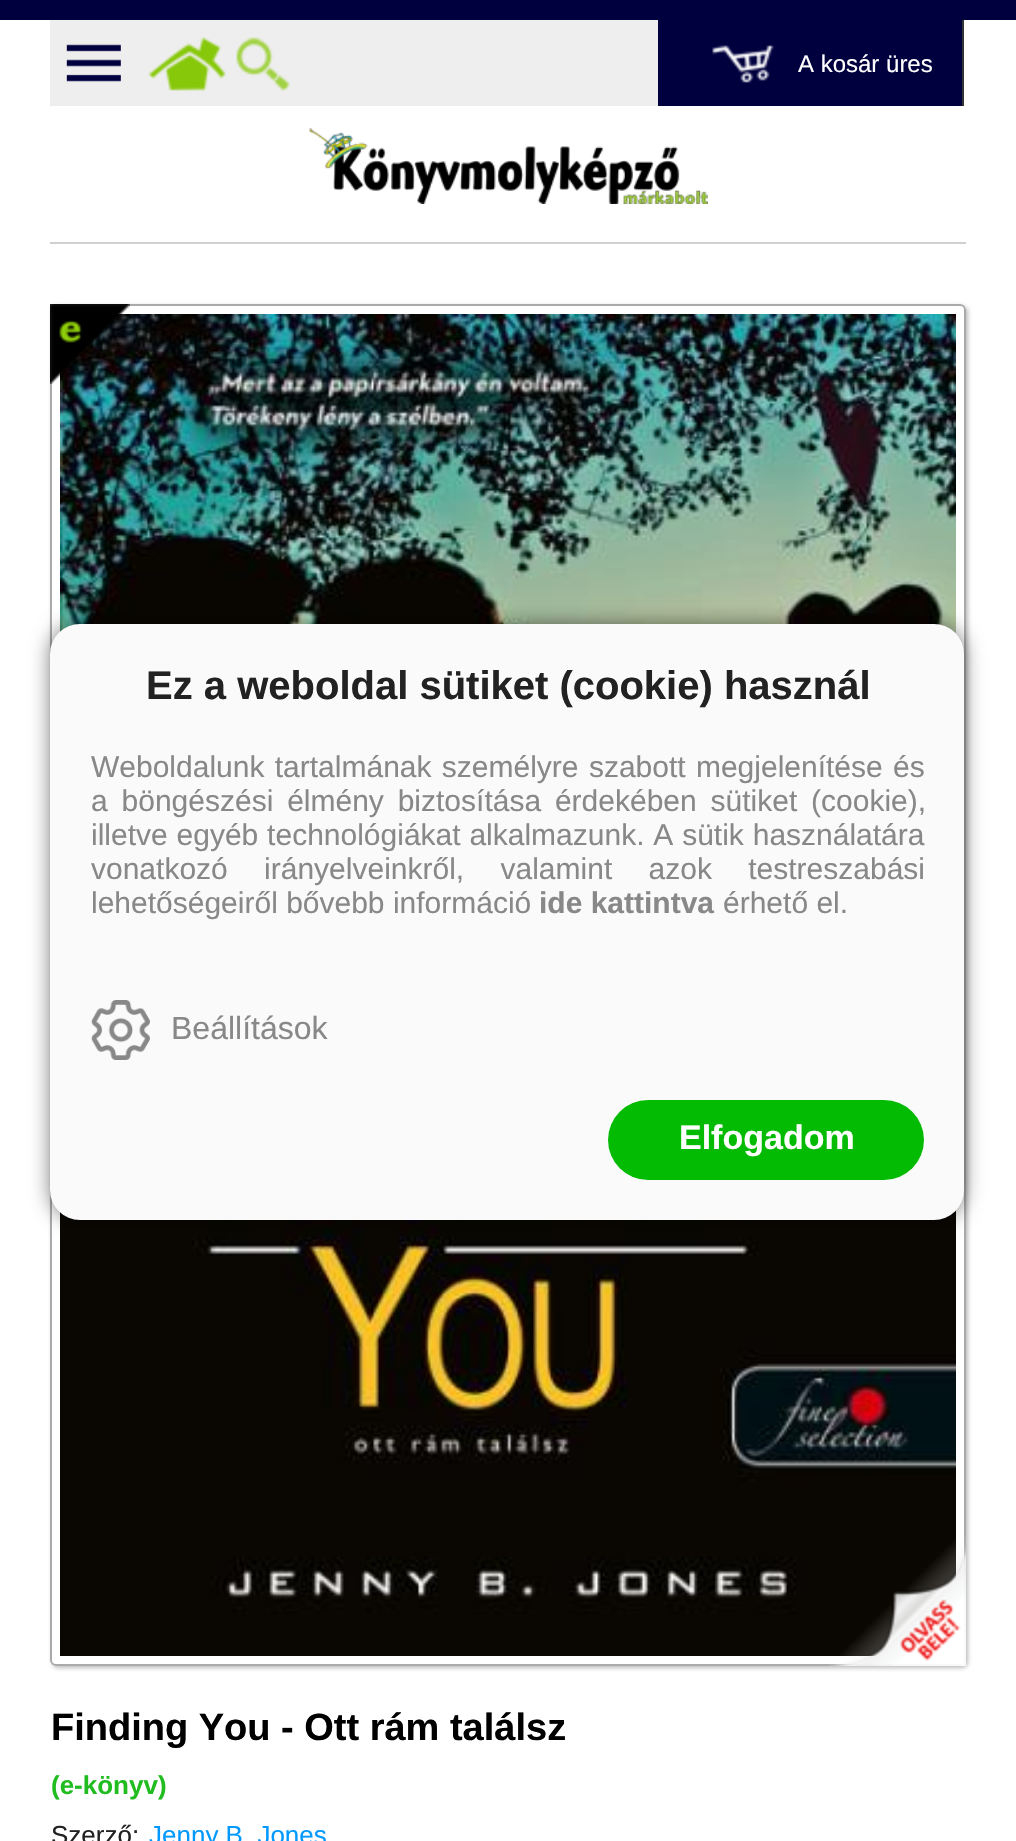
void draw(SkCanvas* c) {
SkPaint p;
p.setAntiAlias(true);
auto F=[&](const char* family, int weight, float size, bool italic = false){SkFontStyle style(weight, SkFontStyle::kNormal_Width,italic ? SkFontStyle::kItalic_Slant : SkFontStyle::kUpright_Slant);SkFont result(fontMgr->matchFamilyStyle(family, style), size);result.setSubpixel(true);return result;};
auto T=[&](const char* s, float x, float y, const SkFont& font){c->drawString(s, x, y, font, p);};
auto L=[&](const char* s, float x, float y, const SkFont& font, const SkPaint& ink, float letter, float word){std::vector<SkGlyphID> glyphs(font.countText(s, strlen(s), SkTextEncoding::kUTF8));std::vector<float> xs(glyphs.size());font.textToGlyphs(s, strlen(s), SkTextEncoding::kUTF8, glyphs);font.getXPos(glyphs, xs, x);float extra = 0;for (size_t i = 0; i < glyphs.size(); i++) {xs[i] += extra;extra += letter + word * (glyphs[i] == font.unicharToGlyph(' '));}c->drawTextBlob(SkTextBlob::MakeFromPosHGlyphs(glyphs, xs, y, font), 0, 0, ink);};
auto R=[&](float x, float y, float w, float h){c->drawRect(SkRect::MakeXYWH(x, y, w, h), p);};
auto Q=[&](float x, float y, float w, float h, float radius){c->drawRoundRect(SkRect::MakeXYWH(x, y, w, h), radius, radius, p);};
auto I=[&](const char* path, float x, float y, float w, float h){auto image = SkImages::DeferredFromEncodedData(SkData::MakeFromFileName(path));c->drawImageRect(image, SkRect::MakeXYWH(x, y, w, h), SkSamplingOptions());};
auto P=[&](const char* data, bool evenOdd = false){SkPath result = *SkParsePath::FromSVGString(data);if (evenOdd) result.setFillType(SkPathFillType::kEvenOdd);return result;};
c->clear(0xffffffff);
p.setColor(0xff00003e);
R(0,0,1016,20);
p.setColor(0xffeeeeee);
R(50,20,608,86);
I("1.png",66,44,55,38);
I("2.png",148,37,78,54);
I("3.png",236,37,54,54);
p.setColor(0xff00003e);
R(658,20,304,86);
p.setColor(0xff333333);
R(962,20,2,86);
I("4.png",712,45,62,38);
auto f1 = F("Liberation Sans",400,24);
p.setColor(0xffffffff);
T("A kosár üres",798,72,f1);
p.setColor(0xffd0d0d0);
R(50,242,916,2);
I("5.png",309,128,399,76);
c->save();
c->clipPath(P("M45 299h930v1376h-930zm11 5h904c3.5 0 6 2.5 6 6v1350c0 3.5-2.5 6-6 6h-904c-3.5 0-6-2.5-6-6v-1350c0-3.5 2.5-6 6-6z",true),true);
p.setColor(0xffbdbdbd);
p.setMaskFilter(SkMaskFilter::MakeBlur(kNormal_SkBlurStyle, 2));
c->drawRoundRect(SkRect::MakeXYWH(52,306,916,1362),6,6,p);
p.setMaskFilter(nullptr);
c->restore();
p.setStroke(true);
p.setStrokeWidth(2);
p.setColor(0xffaaaaaa);
c->drawRoundRect(SkRect::MakeXYWH(51,305,914,1360),5,5,p);
I("6.png",60,314,896,1342);
I("7.png",50,304,80,80);
I("8.png",828,1537,138,129);
auto f2 = F("Liberation Sans",700,38);
p.setStroke(false);
p.setColor(0xff000000);
T("Finding You - Ott rám találsz",51,1740,f2);
auto f3 = F("Liberation Sans",700,26);
p.setColor(0xff20bc20);
T("(e-könyv)",51,1794,f3);
auto f4 = F("Liberation Sans",400,26);
p.setColor(0xff222222);
T("Szerző:",51,1844,f4);
p.setColor(0xff0099ff);
T("Jenny B. Jones",149,1844,f4);
p.setColor(0x80000000);
p.setMaskFilter(SkMaskFilter::MakeBlur(kNormal_SkBlurStyle, 10));
c->drawRoundRect(SkRect::MakeXYWH(50,624,914,596),30,30,p);
p.setMaskFilter(nullptr);
p.setColor(0xfffafafa);
Q(50,624,914,596,30);
auto f5 = F("Liberation Sans",700,40);
p.setColor(0xff222222);
T("Ez a weboldal sütiket (cookie) használ",146,699,f5);
auto f6 = F("Liberation Sans",400,30);
p.setColor(0xff888888);
L("Weboldalunk tartalmának személyre szabott megjelenítése és",91,777,f6,p,0,2);
L("a böngészési élmény biztosítása érdekében sütiket (cookie),",91,811,f6,p,0,5.5);
L("illetve egyéb technológiákat alkalmazunk. A sütik használatára",91,845,f6,p,0,.5);
L("vonatkozó irányelveinkről, valamint azok testreszabási",91,879,f6,p,0,28);
T("lehetőségeiről bővebb információ",91,913,f6);
auto f7 = F("Liberation Sans",700,30);
T("ide kattintva",539,913,f7);
T("érhető el.",723,913,f6);
I("9.png",91,1000,59,60);
auto f8 = F("Liberation Sans",400,32);
T("Beállítások",171,1039,f8);
p.setColor(0xff02bb02);
Q(608,1100,316,80,40);
auto f9 = F("Liberation Sans",700,34);
p.setColor(0xffffffff);
T("Elfogadom",679,1149,f9);
}
